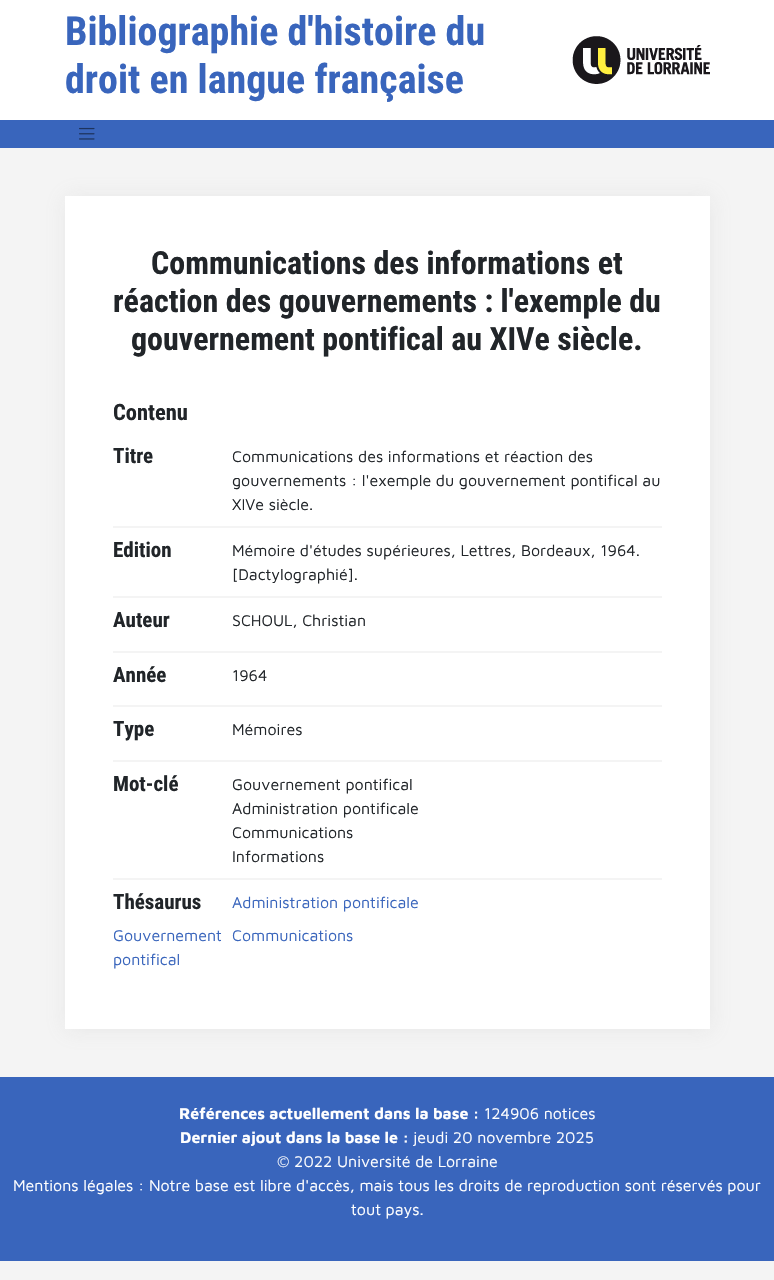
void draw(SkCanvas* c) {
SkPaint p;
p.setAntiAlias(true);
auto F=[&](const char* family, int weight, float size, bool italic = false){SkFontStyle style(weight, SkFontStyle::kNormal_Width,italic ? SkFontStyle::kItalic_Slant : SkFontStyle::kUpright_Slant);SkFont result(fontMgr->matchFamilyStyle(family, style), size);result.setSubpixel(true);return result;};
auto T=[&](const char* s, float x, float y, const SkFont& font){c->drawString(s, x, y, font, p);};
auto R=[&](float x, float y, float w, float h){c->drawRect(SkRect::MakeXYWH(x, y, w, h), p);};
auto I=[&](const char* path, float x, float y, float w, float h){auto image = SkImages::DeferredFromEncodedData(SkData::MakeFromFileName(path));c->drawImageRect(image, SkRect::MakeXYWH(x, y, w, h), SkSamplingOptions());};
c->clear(0xfff4f4f4);
p.setColor(0xffffffff);
R(0,0,774,120);
auto f1 = F("Roboto Condensed",700,40);
p.setColor(0xff3965bc);
T("Bibliographie d'histoire du",65,45,f1);
T("droit en langue française",65,93,f1);
I("1.png",572,36,138,48);
R(0,120,774,28);
I("2.png",79,127,16,13);
p.setColor(0x2ba2a2a2);
p.setMaskFilter(SkMaskFilter::MakeBlur(kNormal_SkBlurStyle, 10));
c->drawRect(SkRect::MakeXYWH(66,197,645,833),p);
p.setMaskFilter(nullptr);
p.setColor(0xffffffff);
R(65,196,645,833);
auto f2 = F("Roboto Condensed",700,32);
p.setColor(0xff212529);
T("Communications des informations et",151,274,f2);
T("réaction des gouvernements : l'exemple du",113,312,f2);
T("gouvernement pontifical au XIVe siècle.",131,350,f2);
auto f3 = F("Roboto Condensed",700,22.5);
T("Contenu",113,420,f3);
p.setColor(0xfff4f4f4);
R(113,526,549,2);
auto f4 = F("Roboto Condensed",700,21);
p.setColor(0xff212529);
T("Titre",113,463,f4);
auto f5 = F("Maven Pro",400,16);
T("Communications des informations et réaction des",232,462,f5);
T("gouvernements : l'exemple du gouvernement pontifical au",232,486,f5);
T("XIVe siècle.",232,510,f5);
p.setColor(0xfff4f4f4);
R(113,596,549,2);
p.setColor(0xff212529);
T("Edition",113,557,f4);
T("Mémoire d'études supérieures, Lettres, Bordeaux, 1964.",232,556,f5);
T("[Dactylographié].",232,580,f5);
p.setColor(0xfff4f4f4);
R(113,651,549,2);
p.setColor(0xff212529);
T("Auteur",113,627,f4);
T("SCHOUL, Christian",232,626,f5);
p.setColor(0xfff4f4f4);
R(113,705,549,2);
p.setColor(0xff212529);
T("Année",113,682,f4);
T("1964",232,681,f5);
p.setColor(0xfff4f4f4);
R(113,760,549,2);
p.setColor(0xff212529);
T("Type",113,736,f4);
T("Mémoires",232,735,f5);
p.setColor(0xfff4f4f4);
R(113,878,549,2);
p.setColor(0xff212529);
T("Mot-clé",113,791,f4);
T("Gouvernement pontifical",232,790,f5);
T("Administration pontificale",232,814,f5);
T("Communications",232,838,f5);
T("Informations",232,862,f5);
T("Thésaurus",113,909,f4);
p.setColor(0xff3965bc);
T("Administration pontificale",232,908,f5);
T("Gouvernement",113,941,f5);
T("pontifical",113,965,f5);
T("Communications",232,941,f5);
R(0,1077,774,184);
auto f6 = F("Maven Pro",700,16);
p.setColor(0xffffffff);
T("Références actuellement dans la base :",179,1119,f6);
T("124906 notices",484,1119,f5);
T("Dernier ajout dans la base le :",180,1143,f6);
T("jeudi 20 novembre 2025",413,1143,f5);
T("© 2022 Université de Lorraine",277,1167,f5);
T("Mentions légales : Notre base est libre d'accès, mais tous les droits de reproduction sont réservés pour",13,1191,f5);
T("tout pays.",351,1215,f5);
}
